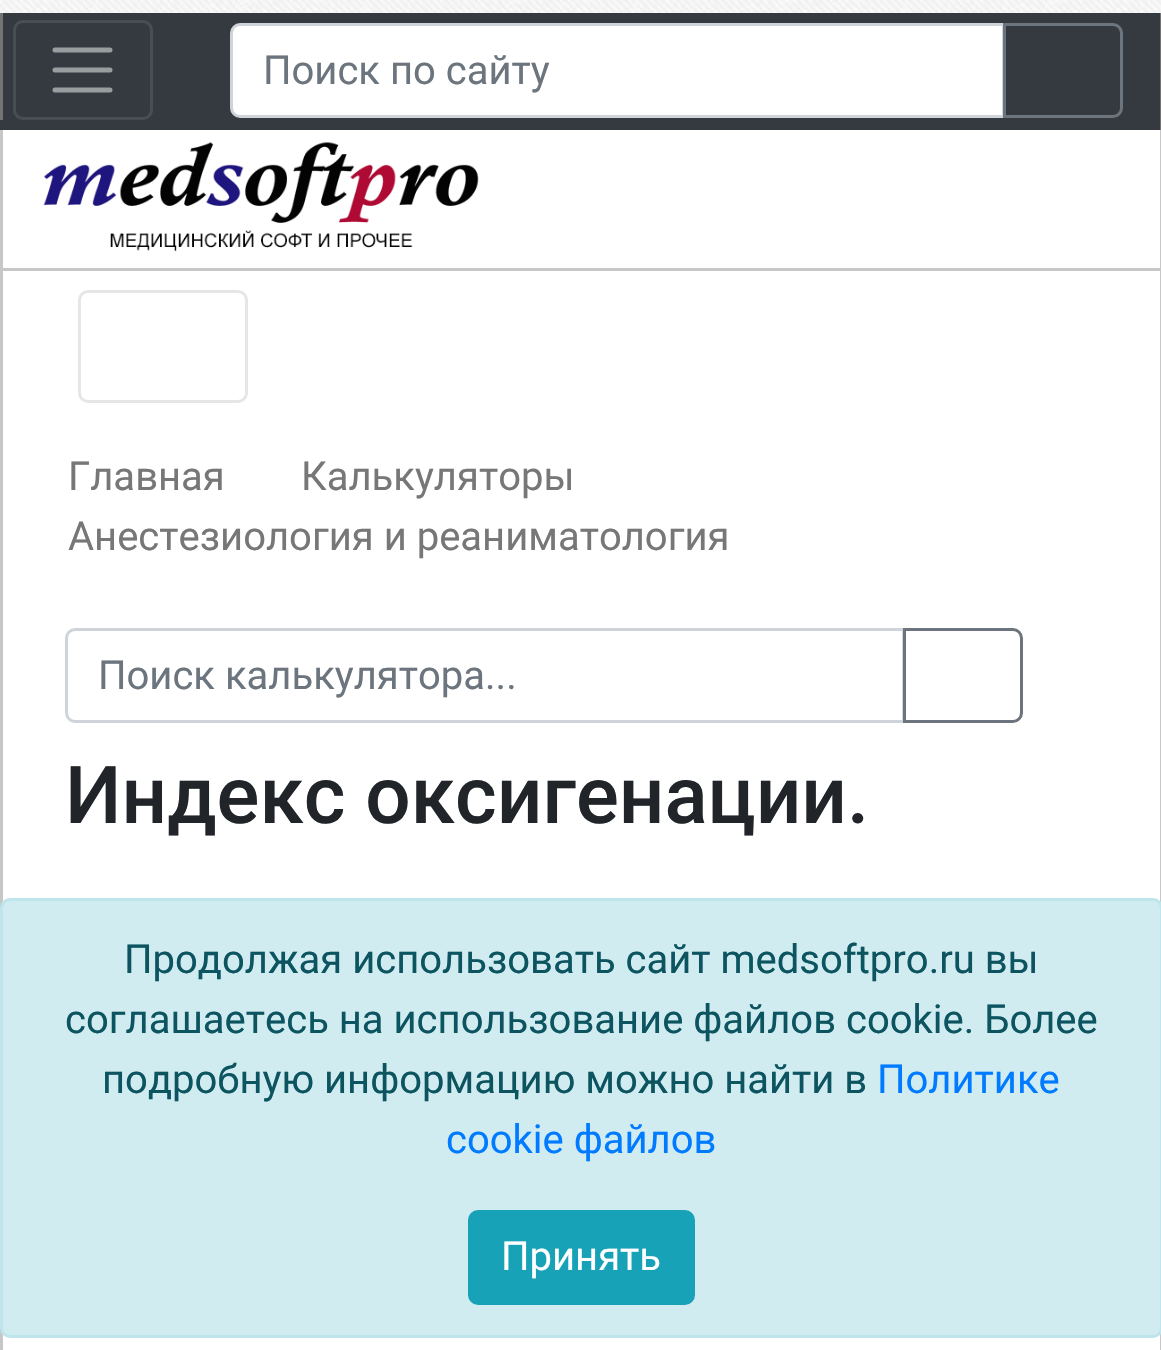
void draw(SkCanvas* c) {
SkPaint p;
p.setAntiAlias(true);
auto F=[&](const char* family, int weight, float size, bool italic = false){SkFontStyle style(weight, SkFontStyle::kNormal_Width,italic ? SkFontStyle::kItalic_Slant : SkFontStyle::kUpright_Slant);SkFont result(fontMgr->matchFamilyStyle(family, style), size);result.setSubpixel(true);return result;};
auto T=[&](const char* s, float x, float y, const SkFont& font){c->drawString(s, x, y, font, p);};
auto R=[&](float x, float y, float w, float h){c->drawRect(SkRect::MakeXYWH(x, y, w, h), p);};
auto I=[&](const char* path, float x, float y, float w, float h){auto image = SkImages::DeferredFromEncodedData(SkData::MakeFromFileName(path));c->drawImageRect(image, SkRect::MakeXYWH(x, y, w, h), SkSamplingOptions());};
auto P=[&](const char* data, bool evenOdd = false){SkPath result = *SkParsePath::FromSVGString(data);if (evenOdd) result.setFillType(SkPathFillType::kEvenOdd);return result;};
c->clear(0xffffffff);
I("1.png",0,0,1161,13);
p.setColor(0xff343a40);
R(0,13,1160,117);
p.setColor(0xff737373);
R(1160,13,1,117);
R(0,13,3,107);
p.setStroke(true);
p.setStrokeWidth(3);
p.setColor(0xff484e53);
c->drawRoundRect(SkRect::MakeXYWH(14.5,21.5,137,97),8.5,8.5,p);
p.setStrokeWidth(5);
p.setStrokeCap(SkPaint::kRound_Cap);
p.setColor(0xff9a9da0);
c->drawPath(P("M55 50h55m-55 20h55m-55 20h55"),p);
p.setStroke(false);
p.setColor(0xffffffff);
c->drawPath(P("M240 24.5h763.5v92h-763.5c-4.5 0-8.5-4-8.5-8.5v-75c0-4.5 4-8.5 8.5-8.5z"),p);
p.setStroke(true);
p.setStrokeWidth(3);
p.setStrokeCap(SkPaint::kButt_Cap);
p.setColor(0xffced4da);
c->drawPath(P("M240 24.5h763.5v92h-763.5c-4.5 0-8.5-4-8.5-8.5v-75c0-4.5 4-8.5 8.5-8.5z"),p);
auto f1 = F("Roboto",400,40);
p.setStroke(false);
p.setColor(0xff6c757d);
T("Поиск по сайту",263,84,f1);
p.setStroke(true);
c->drawPath(P("M1004.5 24.5h108.5c4.5 0 8.5 4 8.5 8.5v75c0 4.5-4 8.5-8.5 8.5h-108.5z"),p);
p.setStroke(false);
p.setColor(0xffc7c7c7);
R(1160,130,1,1220);
R(0,130,3,1220);
I("2.png",43,142,436,110);
R(3,268,1157,3);
p.setStroke(true);
p.setColor(0xffe6e6e6);
c->drawRoundRect(SkRect::MakeXYWH(79.5,291.5,167,110),8.5,8.5,p);
p.setStroke(false);
p.setColor(0xff777777);
T("Главная",68,490,f1);
T("Калькуляторы",301,490,f1);
T("Анестезиология и реаниматология",68,550,f1);
p.setStroke(true);
p.setColor(0xffced4da);
c->drawPath(P("M75 629.5h828.5v92h-828.5c-4.5 0-8.5-4-8.5-8.5v-75c0-4.5 4-8.5 8.5-8.5z"),p);
p.setStroke(false);
p.setColor(0xff6c757d);
T("Поиск калькулятора...",98,689,f1);
p.setStroke(true);
c->drawPath(P("M904.5 629.5h108.5c4.5 0 8.5 4 8.5 8.5v75c0 4.5-4 8.5-8.5 8.5h-108.5z"),p);
auto f2 = F("Roboto",500,80);
p.setStroke(false);
p.setColor(0xff212529);
T("Индекс оксигенации.",65,823,f2);
p.setColor(0xffd1ecf1);
c->drawRoundRect(SkRect::MakeXYWH(1.5,899.5,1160,437),8.5,8.5,p);
p.setStroke(true);
p.setColor(0xffbee5eb);
c->drawRoundRect(SkRect::MakeXYWH(1.5,899.5,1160,437),8.5,8.5,p);
p.setStroke(false);
p.setColor(0xff0c5460);
T("Продолжая использовать сайт medsoftpro.ru вы",124,973,f1);
T("соглашаетесь на использование файлов cookie. Более",65,1033,f1);
T("подробную информацию можно найти в",102,1093,f1);
p.setColor(0xff007bff);
T("Политике",877,1093,f1);
T("cookie файлов",446,1153,f1);
p.setColor(0xff17a2b8);
c->drawRoundRect(SkRect::MakeXYWH(469.5,1211.5,224,92),8.5,8.5,p);
p.setStroke(true);
c->drawRoundRect(SkRect::MakeXYWH(469.5,1211.5,224,92),8.5,8.5,p);
p.setStroke(false);
p.setColor(0xffffffff);
T("Принять",501,1270,f1);
}
